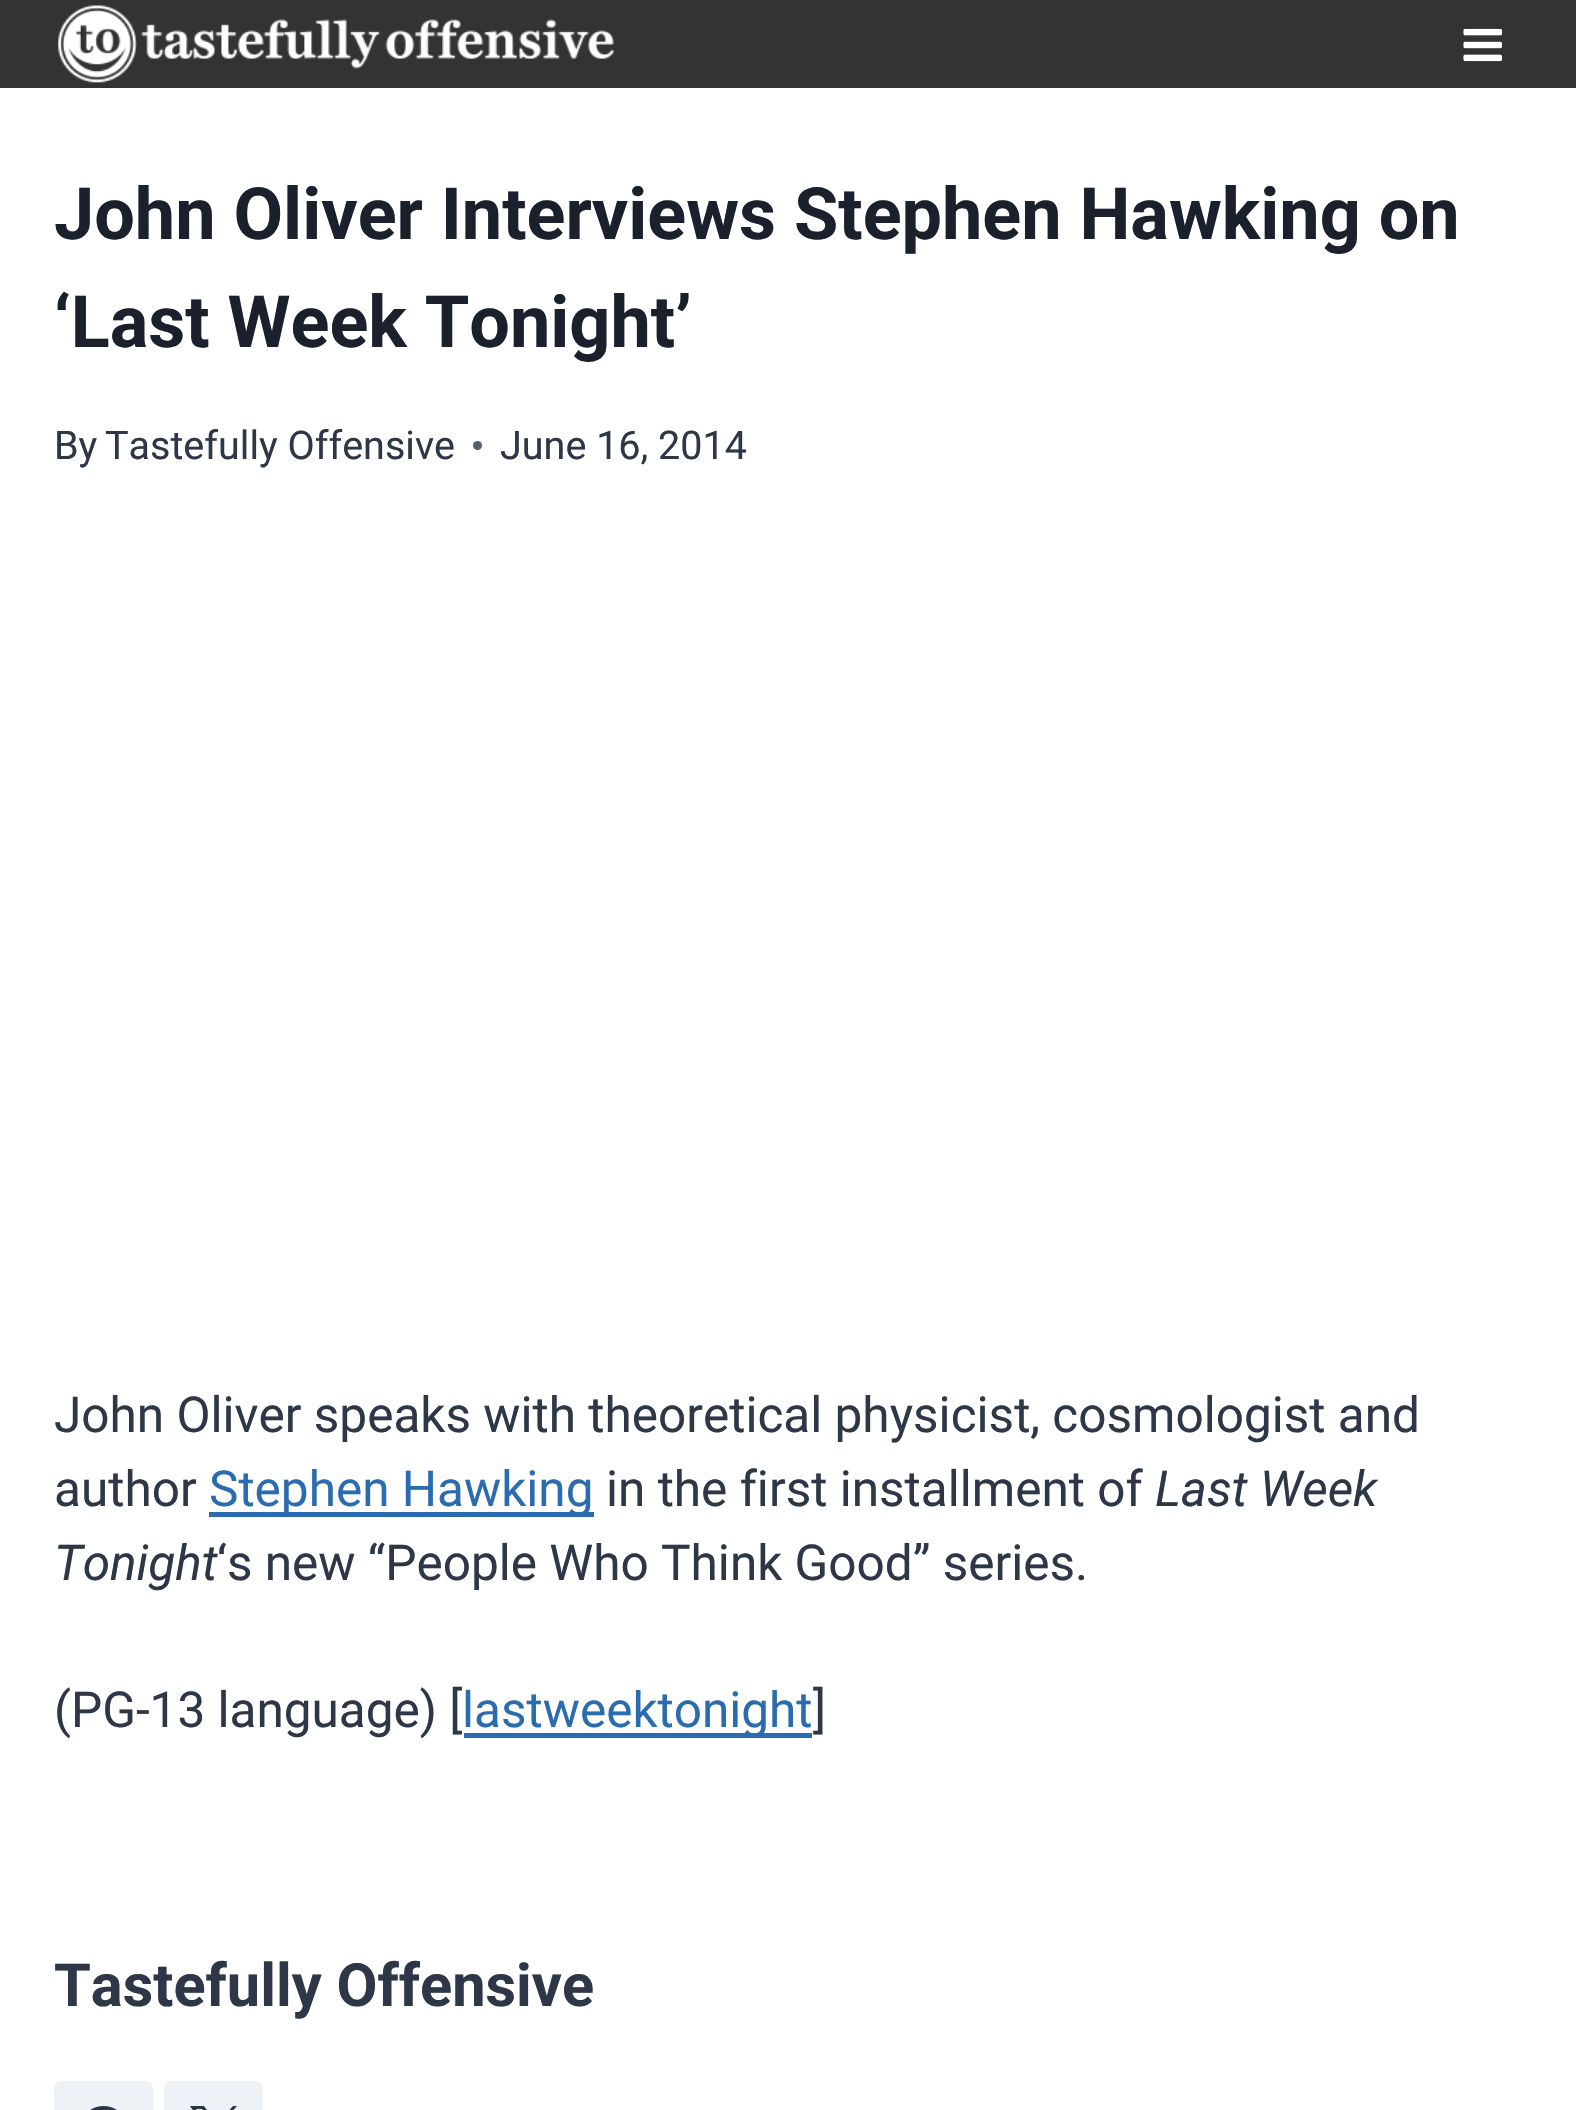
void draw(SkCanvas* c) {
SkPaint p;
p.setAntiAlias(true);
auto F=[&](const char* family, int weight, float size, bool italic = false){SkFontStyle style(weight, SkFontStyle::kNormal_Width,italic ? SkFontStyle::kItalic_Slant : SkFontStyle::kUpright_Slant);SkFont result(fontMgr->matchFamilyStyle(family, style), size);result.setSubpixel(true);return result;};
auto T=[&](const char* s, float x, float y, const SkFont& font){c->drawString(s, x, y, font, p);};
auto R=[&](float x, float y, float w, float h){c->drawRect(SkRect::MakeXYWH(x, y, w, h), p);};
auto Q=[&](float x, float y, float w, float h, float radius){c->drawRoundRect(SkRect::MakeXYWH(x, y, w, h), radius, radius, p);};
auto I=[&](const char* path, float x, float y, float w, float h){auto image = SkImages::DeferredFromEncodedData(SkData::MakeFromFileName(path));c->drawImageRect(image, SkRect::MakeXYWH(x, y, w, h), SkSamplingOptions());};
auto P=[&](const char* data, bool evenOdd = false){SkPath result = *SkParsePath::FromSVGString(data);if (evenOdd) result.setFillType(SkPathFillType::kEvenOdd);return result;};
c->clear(0xffffffff);
p.setColor(0xff333333);
R(0,0,1576,88);
I("1.png",58,5,556,78);
I("2.png",1463,28,40,34);
auto f1 = F("Roboto",700,72);
p.setColor(0xff1a202c);
T("John Oliver Interviews Stephen Hawking on",54,239,f1);
T("‘Last Week Tonight’",54,347,f1);
auto f2 = F("Roboto",400,39.5);
p.setColor(0xff2d3748);
T("By",54,459,f2);
T("Tastefully Offensive",105,459,f2);
p.setColor(0xff575f6d);
c->drawCircle(477.5,445.5,4.5,p);
p.setColor(0xff2d3748);
T("June 16, 2014",500,459,f2);
auto f3 = F("Roboto",400,49.5);
T("John Oliver speaks with theoretical physicist, cosmologist and",54,1432,f3);
T("author",54,1506,f3);
p.setColor(0xff2b6cb0);
R(209,1512,385,5);
T("Stephen Hawking",209,1506,f3);
p.setColor(0xff2d3748);
T("in the first installment of",606,1506,f3);
auto f4 = F("Roboto",400,49.5,true);
T("Last Week",1155,1506,f4);
T("Tonight",54,1580,f4);
T("‘s new “People Who Think Good” series.",217,1580,f3);
T("(PG-13 language) [",54,1727,f3);
p.setColor(0xff2b6cb0);
R(464,1733,348,5);
T("lastweektonight",462,1727,f3);
p.setColor(0xff2d3748);
T("]",813,1727,f3);
auto f5 = F("Roboto",700,59.5);
T("Tastefully Offensive",54,2006,f5);
p.setColor(0xffedf2f7);
Q(54,2081,99,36,7);
I("3.png",90,2106,27,4);
Q(164,2081,99,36,7);
p.setColor(0xff2d3748);
c->drawPath(P("M219 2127l18-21h-4l-16 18l-13-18h-14l19 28l-19 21h4l17-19l13 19h14zm-6 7l-17-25h6l31 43h-7z"),p);
}
